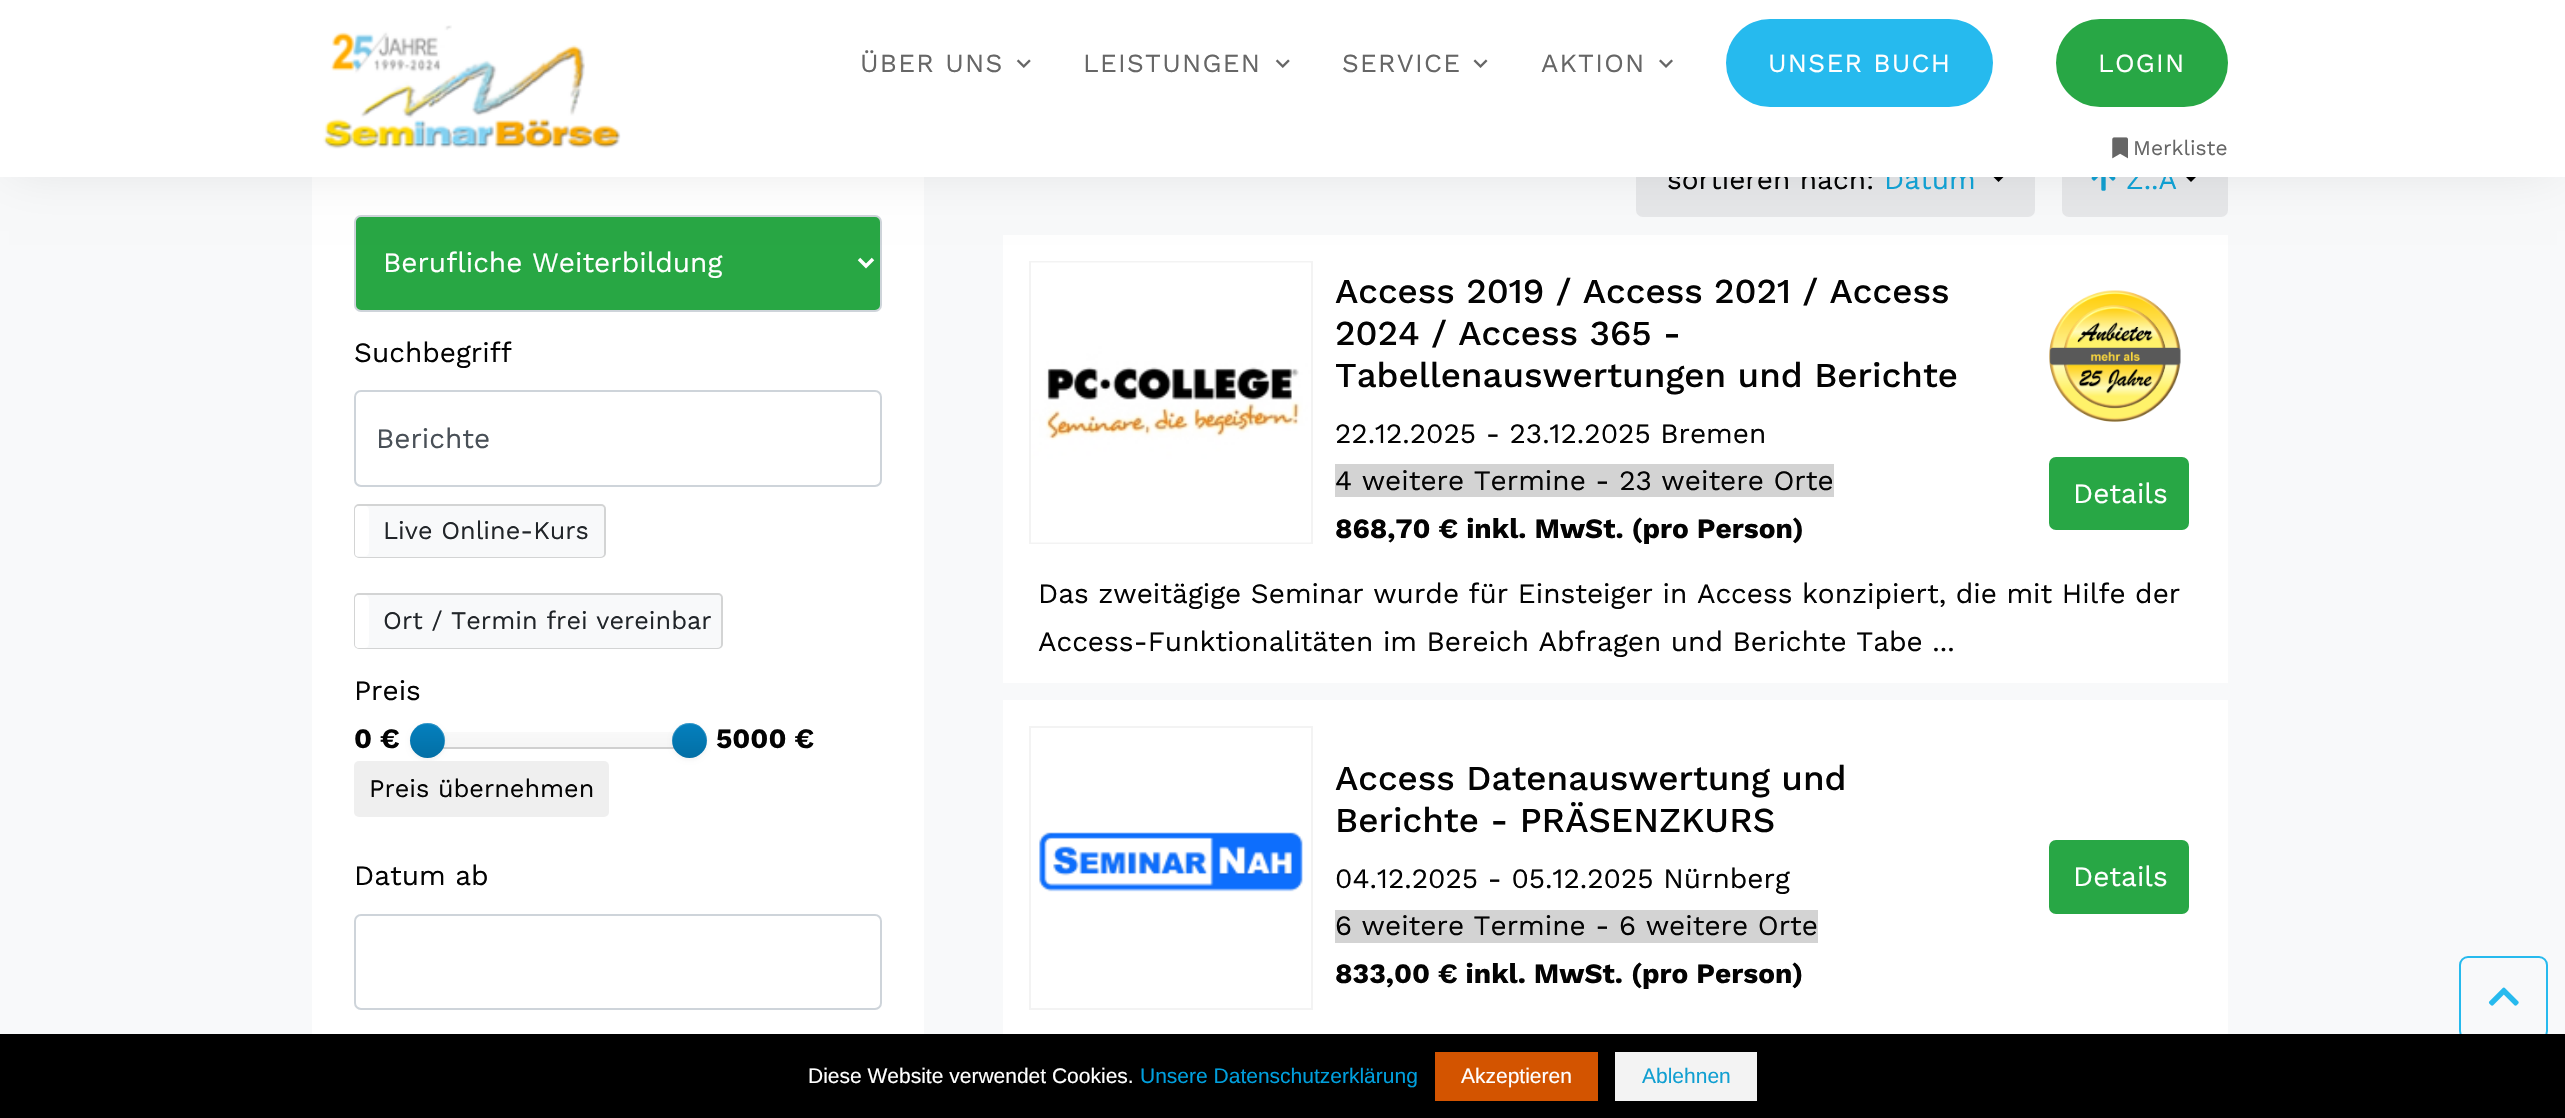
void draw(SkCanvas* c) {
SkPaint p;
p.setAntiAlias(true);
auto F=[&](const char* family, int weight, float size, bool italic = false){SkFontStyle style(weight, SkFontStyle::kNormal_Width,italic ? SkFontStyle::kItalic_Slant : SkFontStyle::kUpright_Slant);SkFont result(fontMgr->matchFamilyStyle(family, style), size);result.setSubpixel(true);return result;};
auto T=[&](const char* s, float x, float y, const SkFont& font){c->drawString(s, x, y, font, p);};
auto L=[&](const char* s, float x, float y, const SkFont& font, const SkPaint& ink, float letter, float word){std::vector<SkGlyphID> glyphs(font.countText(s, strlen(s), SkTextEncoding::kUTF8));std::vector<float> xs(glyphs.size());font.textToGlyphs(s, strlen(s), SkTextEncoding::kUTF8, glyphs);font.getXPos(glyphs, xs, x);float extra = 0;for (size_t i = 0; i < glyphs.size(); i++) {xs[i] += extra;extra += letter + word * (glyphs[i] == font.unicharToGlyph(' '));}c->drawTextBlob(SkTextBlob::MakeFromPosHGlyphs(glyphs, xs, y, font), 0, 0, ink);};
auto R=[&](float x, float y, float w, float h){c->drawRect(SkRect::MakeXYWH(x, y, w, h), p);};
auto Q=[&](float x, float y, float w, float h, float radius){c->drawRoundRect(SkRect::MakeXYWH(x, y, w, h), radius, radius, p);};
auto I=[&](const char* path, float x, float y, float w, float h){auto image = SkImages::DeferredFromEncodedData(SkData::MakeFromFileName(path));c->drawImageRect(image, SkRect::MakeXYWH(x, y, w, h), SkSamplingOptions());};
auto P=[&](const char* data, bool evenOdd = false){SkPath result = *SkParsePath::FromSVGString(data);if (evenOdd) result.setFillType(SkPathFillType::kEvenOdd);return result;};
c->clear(0xfff8f9fa);
p.setColor(0xffffffff);
R(312,177,612,857);
p.setColor(0xff28a744);
c->drawRoundRect(SkRect::MakeXYWH(355,216,526,95),6,6,p);
p.setStroke(true);
p.setStrokeWidth(2);
p.setColor(0xffced4da);
c->drawRoundRect(SkRect::MakeXYWH(355,216,526,95),6,6,p);
p.setStroke(false);
p.setColor(0xffe6e7e9);
c->drawRoundRect(SkRect::MakeXYWH(1637,145,397,71),6,6,p);
p.setStroke(true);
c->drawRoundRect(SkRect::MakeXYWH(1637,145,397,71),6,6,p);
p.setStroke(false);
p.setColor(0xff000000);
c->drawPath(P("M1991.5 175h14l-7 7z"),p);
p.setColor(0xffe6e7e9);
c->drawRoundRect(SkRect::MakeXYWH(2063,145,164,71),6,6,p);
p.setStroke(true);
c->drawRoundRect(SkRect::MakeXYWH(2063,145,164,71),6,6,p);
I("6.png",2091,177,25,14);
p.setStroke(false);
p.setColor(0xff000000);
c->drawPath(P("M2184 175h14l-7 7z"),p);
p.setColor(0xffffffff);
R(1003,235,1225,448);
p.setColor(0x1a000000);
p.setMaskFilter(SkMaskFilter::MakeBlur(kNormal_SkBlurStyle, 26));
c->drawRect(SkRect::MakeXYWH(9,9,2548,159),p);
p.setMaskFilter(nullptr);
auto f1 = F("Work Sans",400,28);
p.setColor(0xff030303);
T("sortieren nach:",1667,189,f1);
p.setColor(0xff109fd1);
T("Datum",1884,189,f1);
T("Z..A",2126,189,f1);
p.setColor(0xffffffff);
R(0,0,2565,177);
I("1.png",323,25,298,124);
auto f2 = F("Work Sans",400,26.25);
p.setColor(0xff666666);
L("ÜBER UNS",860,72,f2,p,1.25,0);
I("2.png",1016,59,15,9);
L("LEISTUNGEN",1083,72,f2,p,1.25,0);
I("2.png",1275,59,15,9);
L("SERVICE",1342,72,f2,p,1.25,0);
I("3.png",1473,59,15,9);
L("AKTION",1541,72,f2,p,1.25,0);
I("4.png",1659,59,14,9);
p.setColor(0xff26baee);
Q(1726,19,267,88,44);
p.setColor(0xffffffff);
L("UNSER BUCH",1768,72,f2,p,1.25,0);
p.setColor(0xff28a745);
Q(2056,19,172,88,44);
p.setColor(0xffffffff);
L("LOGIN",2098,72,f2,p,1.25,0);
I("5.png",2112,137,16,22);
auto f3 = F("Work Sans",400,21);
p.setColor(0xff666666);
T("Merkliste",2133,155,f3);
p.setStroke(true);
p.setStrokeWidth(3.5);
p.setColor(0xffffffff);
c->drawPath(P("M859 259l7 7l7-7"),p);
p.setStroke(false);
T("Berufliche Weiterbildung",383,272,f1);
p.setColor(0xff030303);
T("Suchbegriff",354,362,f1);
p.setStroke(true);
p.setStrokeWidth(2);
p.setColor(0xffced4da);
c->drawRoundRect(SkRect::MakeXYWH(355,391,526,95),6,6,p);
p.setStroke(false);
p.setColor(0xff495057);
T("Berichte",376,448,f1);
p.setColor(0xfff8f9fa);
Q(354,504,252,54,5);
p.setStroke(true);
p.setColor(0x26000000);
c->drawRoundRect(SkRect::MakeXYWH(355,505,250,52),4,4,p);
p.setStroke(false);
p.setColor(0xfff8f9fa);
Q(355,506,249,51,4);
p.setColor(0xffffffff);
c->drawPath(P("M359 506c-2 0-4 2-4 4v43c0 1 1 2 1 3h9c3 0 4-2 4-5v-40c0-3-1-5-4-5z"),p);
auto f4 = F("Work Sans",400,25.25);
p.setColor(0xff212529);
T("Live Online-Kurs",383,539,f4);
p.setColor(0xfff8f9fa);
Q(354,593,369,56,5);
p.setStroke(true);
p.setColor(0x26000000);
c->drawRoundRect(SkRect::MakeXYWH(355,594,367,54),4,4,p);
p.setStroke(false);
p.setColor(0xfff8f9fa);
Q(355,595,366,53,4);
p.setColor(0xffffffff);
c->drawPath(P("M359 595c-2 0-4 2-4 4v45c0 2 2 4 4 4h6c3 0 4-3 4-6v-41c0-3-1-6-4-6z"),p);
p.setColor(0xff212529);
T("Ort / Termin frei vereinbar",383,629,f4);
p.setColor(0xff030303);
T("Preis",354,700,f1);
auto f5 = F("Work Sans",700,28);
T("0 €",354,748,f5);
{
const SkColor colors[] = {0xfff9f9f9,0xfff5f5f5};
const float stops[] = {0,1};
const SkPoint ends[] = {{558,732}, {558,749}};
p.setShader(SkGradientShader::MakeLinear(ends, colors, stops, 2, SkTileMode::kClamp));
p.setAlpha(255);
}
R(442,732,233,15);
p.setShader(nullptr);
p.setColor(0xffd0d0d0);
c->drawPath(P("M427 741v1c0 4 3 7 7 7h249c4 0 7-3 7-7v-5c0 3-1 6-3 8c-1 2-3 2-5 2h-249c-3 0-5-2-5-4z"),p);
p.setColor(0x0d000000);
p.setMaskFilter(SkMaskFilter::MakeBlur(kNormal_SkBlurStyle, 2));
c->drawRoundRect(SkRect::MakeXYWH(410,725,35,35),17.5,17.5,p);
p.setMaskFilter(nullptr);
{
const SkColor colors[] = {0xff0480be,0xff036fa5};
const float stops[] = {0,1};
const SkPoint ends[] = {{427,723}, {427,758}};
p.setShader(SkGradientShader::MakeLinear(ends, colors, stops, 2, SkTileMode::kClamp));
p.setAlpha(255);
}
c->drawCircle(427.5,740.5,17.5,p);
p.setShader(nullptr);
p.setColor(0x33ffffff);
c->drawPath(P("M427 724c14 0 19.5 13.5 16.5 23.5c7.5-16-13-32.5-27-20.5c-3.5 2.5-5.5 6-6 10c1.5-7 7-13 16.5-13z"),p);
p.setColor(0x0d000000);
p.setMaskFilter(SkMaskFilter::MakeBlur(kNormal_SkBlurStyle, 2));
c->drawRoundRect(SkRect::MakeXYWH(672,725,35,35),17.5,17.5,p);
p.setMaskFilter(nullptr);
{
const SkColor colors[] = {0xff0480be,0xff036fa5};
const float stops[] = {0,1};
const SkPoint ends[] = {{690,723}, {690,758}};
p.setShader(SkGradientShader::MakeLinear(ends, colors, stops, 2, SkTileMode::kClamp));
p.setAlpha(255);
}
c->drawCircle(689.5,740.5,17.5,p);
p.setShader(nullptr);
p.setColor(0x33ffffff);
c->drawPath(P("M690 724c12.5 0 18 12 16 22c5-15.5-12.5-29.5-26.5-20c-2.5 2-5 4.5-6 7.5c-2 4.5-2 10 0 14c-3-10 2.5-23.5 16.5-23.5z"),p);
p.setColor(0xff030303);
T("5000 €",716,748,f5);
p.setColor(0xffefefef);
Q(354,761,255,56,5);
p.setColor(0xff030303);
T("Preis übernehmen",369,797,f4);
T("Datum ab",354,885,f1);
p.setStroke(true);
p.setColor(0xffced4da);
c->drawRoundRect(SkRect::MakeXYWH(355,915,526,94),6,6,p);
p.setColor(0xfff3f3f3);
c->drawRect(SkRect::MakeXYWH(1030,262,282,281),p);
I("7.png",1031,262,280,281);
auto f6 = F("Work Sans",500,35);
p.setStroke(false);
p.setColor(0xff030303);
T("Access 2019 / Access 2021 / Access",1335,303,f6);
T("2024 / Access 365 -",1335,345,f6);
T("Tabellenauswertungen und Berichte",1335,387,f6);
T("22.12.2025 - 23.12.2025 Bremen",1335,443,f1);
p.setColor(0xffd3d3d3);
R(1335,464,499,33);
p.setColor(0xff030303);
T("4 weitere Termine - 23 weitere Orte",1335,490,f1);
T("868,70 € inkl. MwSt. (pro Person)",1335,538,f5);
I("8.png",2049,290,132,132);
p.setColor(0xff28a745);
c->drawRoundRect(SkRect::MakeXYWH(2050,458,138,71),6,6,p);
p.setStroke(true);
c->drawRoundRect(SkRect::MakeXYWH(2050,458,138,71),6,6,p);
p.setStroke(false);
p.setColor(0xffffffff);
T("Details",2073,503,f1);
p.setColor(0xff030303);
T("Das zweitägige Seminar wurde für Einsteiger in Access konzipiert, die mit Hilfe der",1038,603,f1);
T("Access-Funktionalitäten im Bereich Abfragen und Berichte Tabe ...",1038,651,f1);
p.setColor(0xffffffff);
R(1003,700,1225,334);
p.setStroke(true);
p.setColor(0xfff3f3f3);
c->drawRect(SkRect::MakeXYWH(1030,727,282,282),p);
I("9.png",1039,832,264,60);
p.setStroke(false);
p.setColor(0xff030303);
T("Access Datenauswertung und",1335,790,f6);
T("Berichte - PRÄSENZKURS",1335,832,f6);
T("04.12.2025 - 05.12.2025 Nürnberg",1335,888,f1);
p.setColor(0xffd3d3d3);
R(1335,910,483,33);
p.setColor(0xff030303);
T("6 weitere Termine - 6 weitere Orte",1335,935,f1);
T("833,00 € inkl. MwSt. (pro Person)",1335,983,f5);
p.setColor(0xff28a745);
c->drawRoundRect(SkRect::MakeXYWH(2050,841,138,72),6,6,p);
p.setStroke(true);
c->drawRoundRect(SkRect::MakeXYWH(2050,841,138,72),6,6,p);
p.setStroke(false);
p.setColor(0xffffffff);
T("Details",2073,886,f1);
p.setStroke(true);
p.setColor(0xff26baee);
c->drawRoundRect(SkRect::MakeXYWH(2460,957,87,82),8,8,p);
I("10.png",2488,987,31,19);
p.setStroke(false);
p.setColor(0xff000000);
R(0,1034,2565,84);
auto f7 = F("Liberation Sans",400,21);
p.setColor(0xffffffff);
T("Diese Website verwendet Cookies.",808,1083,f7);
p.setColor(0xff009fdd);
T("Unsere Datenschutzerklärung",1140,1083,f7);
p.setColor(0xffd35400);
R(1435,1052,163,49);
p.setColor(0xffffffff);
T("Akzeptieren",1461,1083,f7);
p.setColor(0xfff3f3f3);
R(1615,1052,142,49);
p.setColor(0xff109fd1);
T("Ablehnen",1642,1083,f7);
}
